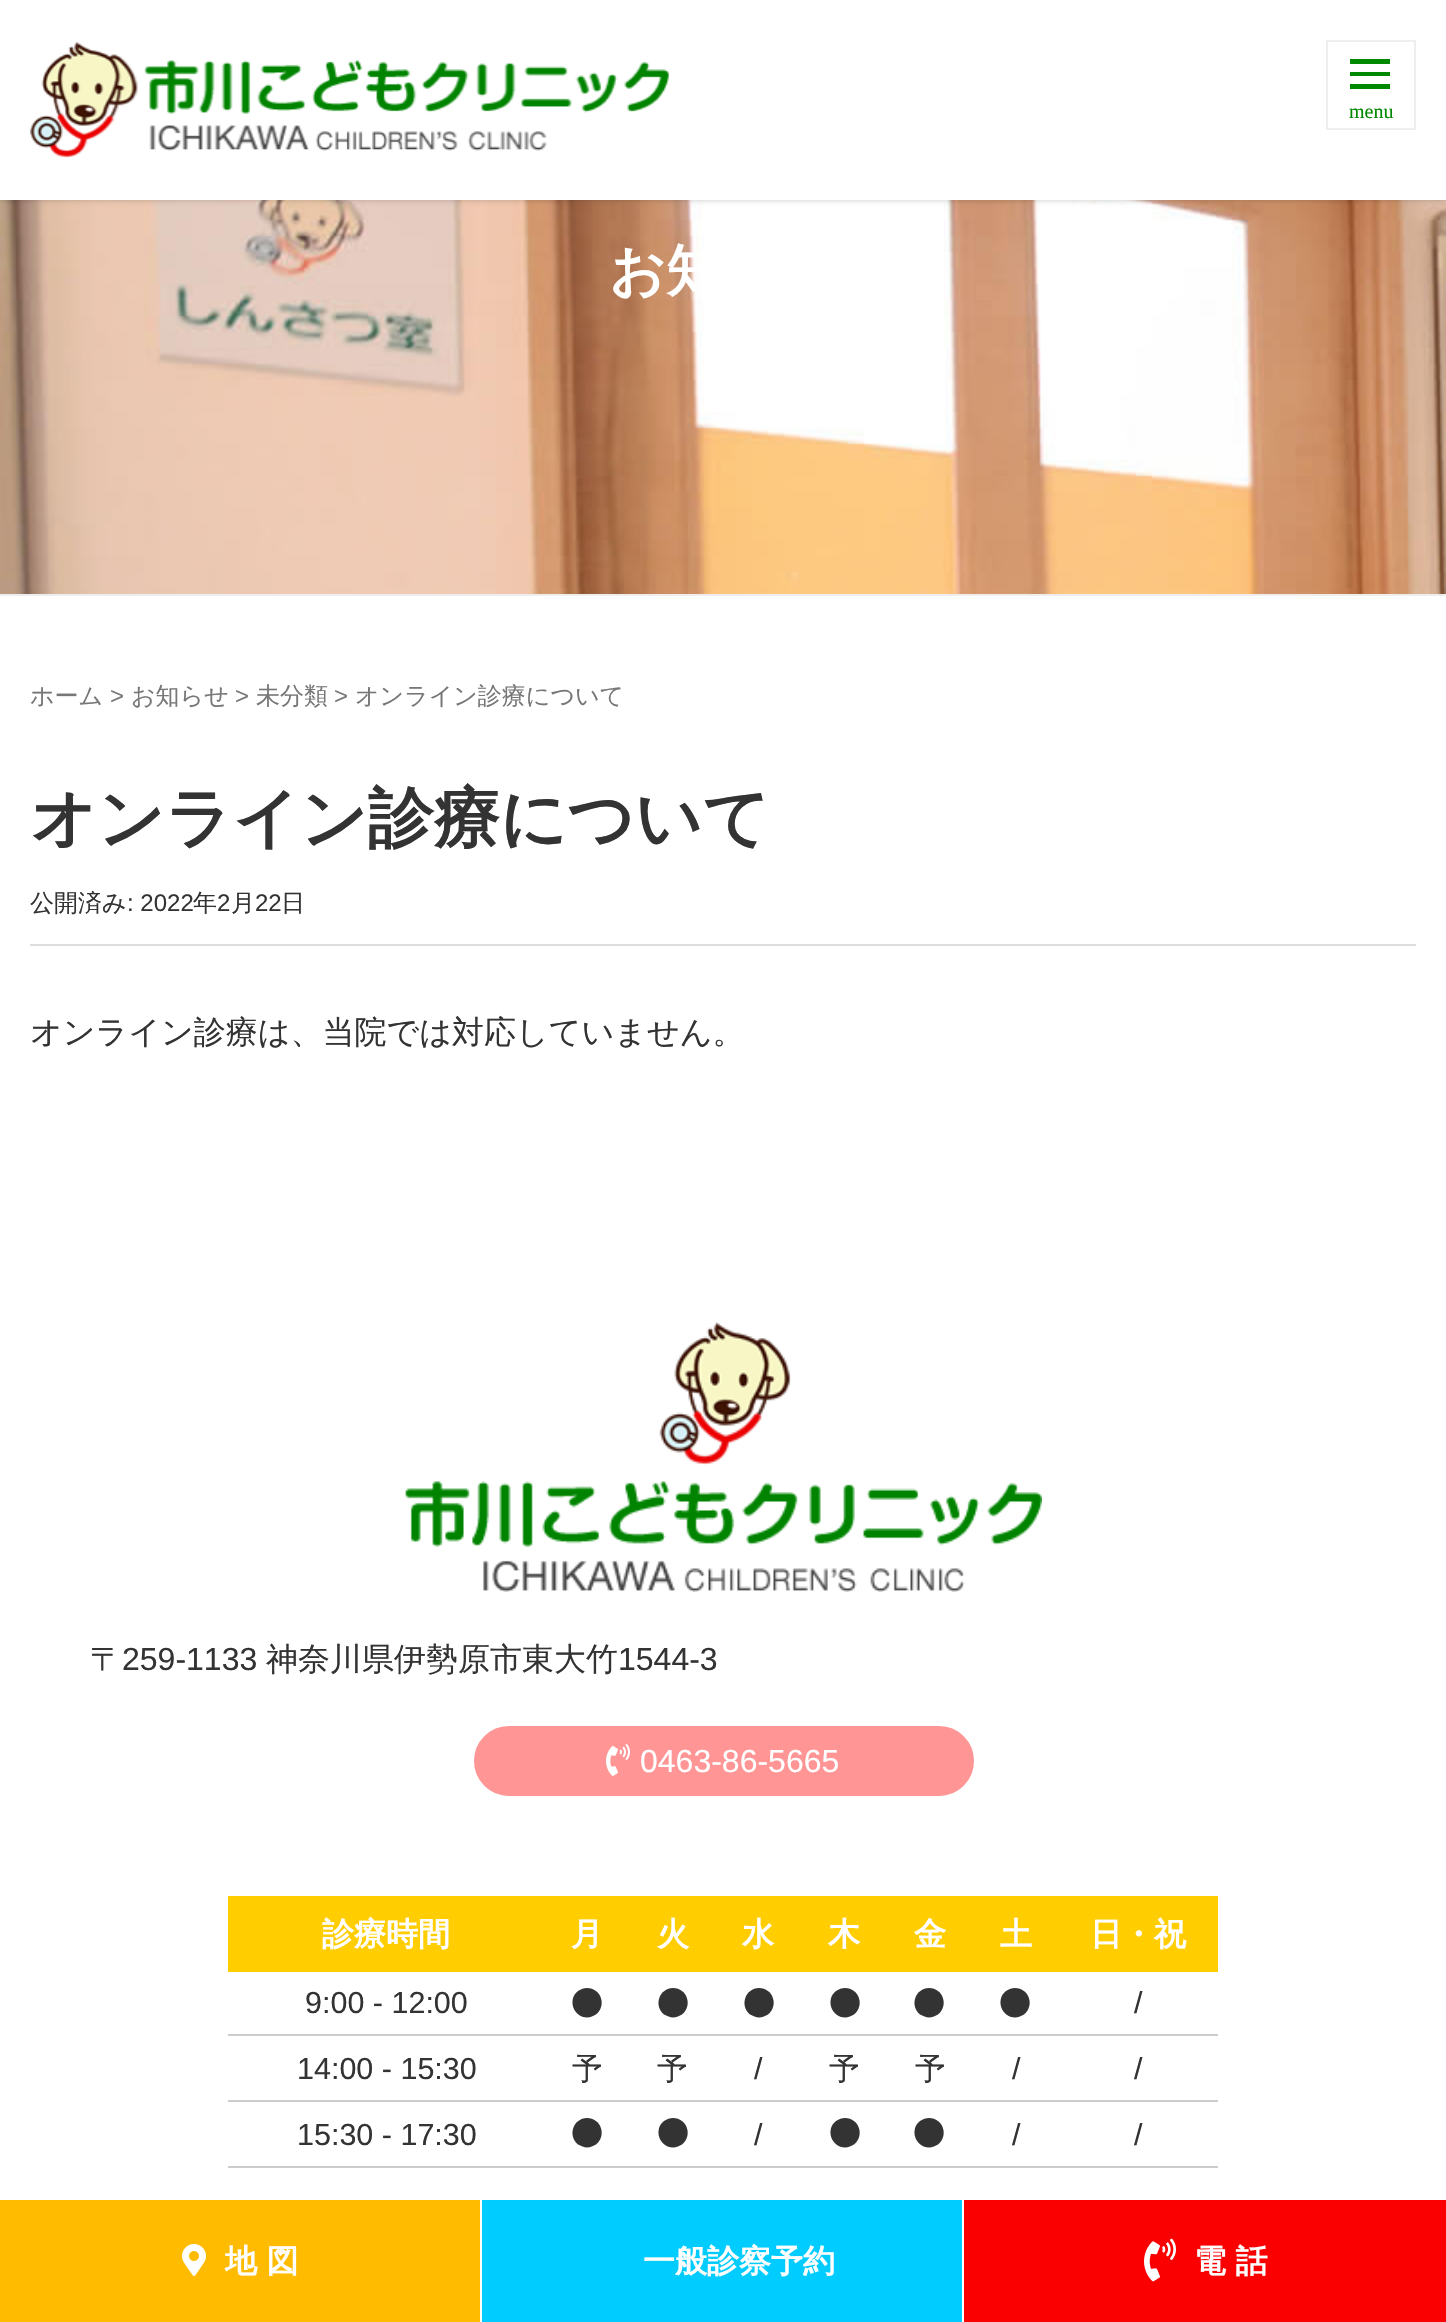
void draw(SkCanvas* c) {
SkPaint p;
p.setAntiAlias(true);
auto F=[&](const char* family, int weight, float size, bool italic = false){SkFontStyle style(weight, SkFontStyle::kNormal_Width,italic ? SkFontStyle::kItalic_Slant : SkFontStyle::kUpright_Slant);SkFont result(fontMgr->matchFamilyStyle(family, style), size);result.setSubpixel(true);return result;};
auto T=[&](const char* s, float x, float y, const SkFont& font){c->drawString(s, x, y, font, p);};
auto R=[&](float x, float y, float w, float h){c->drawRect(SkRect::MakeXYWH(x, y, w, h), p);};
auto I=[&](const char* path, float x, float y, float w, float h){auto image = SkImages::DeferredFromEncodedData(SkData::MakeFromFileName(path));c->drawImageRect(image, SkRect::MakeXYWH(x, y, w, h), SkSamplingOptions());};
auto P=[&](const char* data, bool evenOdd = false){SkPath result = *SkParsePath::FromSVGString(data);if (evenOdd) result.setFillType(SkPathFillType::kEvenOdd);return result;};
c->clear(0xffffffff);
I("2.png",0,200,1446,394);
p.setColor(0x33000000);
p.setMaskFilter(SkMaskFilter::MakeBlur(kNormal_SkBlurStyle, 3));
c->drawRect(SkRect::MakeXYWH(0,0,1446,200),p);
p.setMaskFilter(nullptr);
p.setColor(0xffffffff);
R(0,0,1446,200);
I("1.png",30,41,639,117);
p.setStroke(true);
p.setStrokeWidth(2);
p.setColor(0xffeeeeee);
c->drawRect(SkRect::MakeXYWH(1327,41,88,88),p);
p.setStroke(false);
p.setColor(0xff008800);
c->drawPath(P("M1350 89v-5h40v5zm0-30h40v5h-40zm0 17v-4h40v4z"),p);
auto f1 = F("Liberation Serif",400,20);
T("menu",1349,118,f1);
p.setColor(0xffeeeeee);
R(0,594,1446,2);
auto f2 = F("WenQuanYi Zen Hei",700,56);
p.setColor(0xffffffff);
T("お知",609,290,f2);
auto f3 = F("WenQuanYi Zen Hei",500,24);
p.setColor(0xff777777);
T("ホーム",30,704,f3);
auto f4 = F("Liberation Sans",400,24);
T(">",110,704,f4);
T("お知らせ",131,704,f3);
T(">",235,704,f4);
T("未分類",256,704,f3);
T(">",334,704,f4);
T("オンライン診療について",355,704,f3);
auto f5 = F("WenQuanYi Zen Hei",700,66);
p.setColor(0xff333333);
T("オンライン診療について",30,841,f5);
p.setColor(0xffdddddd);
R(30,944,1386,2);
p.setColor(0xff333333);
T("公開済み",30,911,f3);
T(": 2022",127,911,f4);
T("年",193,911,f3);
T("2",217,911,f4);
T("月",231,911,f3);
T("22",255,911,f4);
T("日",281,911,f3);
auto f6 = F("WenQuanYi Zen Hei",500,32);
T("オンライン診療は、当院では対応していません。",30,1043,f6);
I("3.png",405,1322,637,270);
T("〒",90,1670,f6);
auto f7 = F("Liberation Sans",400,32);
T("259-1133",122,1670,f7);
T("神奈川県伊勢原市東大竹",266,1670,f6);
T("1544-3",618,1670,f7);
p.setColor(0xffff9595);
c->drawRoundRect(SkRect::MakeXYWH(475,1727,498,68),34,34,p);
p.setStroke(true);
c->drawRoundRect(SkRect::MakeXYWH(475,1727,498,68),34,34,p);
I("4.png",606,1744,24,32);
p.setStroke(false);
p.setColor(0xffffffff);
T("0463-86-5665",640,1772,f7);
p.setColor(0xffffcd00);
R(228,1896,990,76);
auto f8 = F("WenQuanYi Zen Hei",700,32);
p.setColor(0xffffffff);
T("診療時間",322,1945,f8);
T("月",571,1945,f8);
T("火",657,1945,f8);
T("水",742,1945,f8);
T("木",828,1945,f8);
T("金",914,1945,f8);
T("土",1000,1945,f8);
T("日・祝",1090,1945,f8);
auto f9 = F("Liberation Sans",400,30.5);
p.setColor(0xff333333);
T("9:00 - 12:00",305,2013,f9);
c->drawPath(P("M587 1988c-3 0-6 1-9 3c-11 8.5-4.5 26.5 9 26.5c3.5 0 6.5-1.5 9-3c11-9 5-26.5-9-26.5z"),p);
c->drawPath(P("M673 1988c-13.5 0-20 17.5-9 26.5c3 1.5 6 3 9 3c3.5 0 6.5-1.5 9-3c11-9 5-26.5-9-26.5z"),p);
c->drawPath(P("M759 1988c-13.5 0-20 17.5-9 26.5c3 1.5 6 3 9 3c3.5 0 6.5-1.5 9-3c11-9 5-26.5-9-26.5z"),p);
c->drawPath(P("M845 1988c-3 0-6 1-9 3c-11 8.5-4.5 26.5 9 26.5c3.5 0 6.5-1.5 9-3c11-9 5-26.5-9-26.5z"),p);
c->drawPath(P("M929 1988c-13.5 0-20 17.5-9 26.5c3 1.5 6 3 9 3c3.5 0 6.5-1.5 9-3c11-9 5-26.5-9-26.5z"),p);
c->drawPath(P("M1015 1988c-3 0-6 1-9 3c-11 8.5-4.5 26.5 9 26.5c3.5 0 6.5-1.5 9-3c11-9 5-26.5-9-26.5z"),p);
p.setColor(0xffcccccc);
R(228,2034,990,2);
p.setColor(0xff333333);
T("/",1134,2013,f9);
T("14:00 - 15:30",297,2079,f9);
auto f10 = F("WenQuanYi Zen Hei",500,30.5);
T("予",572,2079,f10);
T("予",657,2079,f10);
T("/",754,2079,f9);
T("予",829,2079,f10);
T("予",915,2079,f10);
T("/",1012,2079,f9);
p.setColor(0xffcccccc);
R(228,2100,990,2);
p.setColor(0xff333333);
T("/",1134,2079,f9);
T("15:30 - 17:30",297,2145,f9);
c->drawPath(P("M587 2118c-13.5 0-20 17.5-9 26.5c3 1.5 6 3 9 3c3.5 0 6.5-1.5 9-3c11-9 5-26.5-9-26.5z"),p);
c->drawPath(P("M673 2118c-3 0-6 1-9 3c-11 8.5-4.5 26.5 9 26.5c3.5 0 6.5-1.5 9-3c11-9 5-26.5-9-26.5z"),p);
T("/",754,2145,f9);
c->drawPath(P("M845 2118c-3 0-6 1-9 3c-11 8.5-4.5 26.5 9 26.5c3.5 0 6.5-1.5 9-3c11-9 5-26.5-9-26.5z"),p);
c->drawPath(P("M929 2118c-3 0-6 1-9 3c-11 8.5-4.5 26.5 9 26.5c3.5 0 6.5-1.5 9-3c11-9 5-26.5-9-26.5z"),p);
T("/",1012,2145,f9);
p.setColor(0xffcccccc);
R(228,2166,990,2);
p.setColor(0xff333333);
T("/",1134,2145,f9);
p.setColor(0xffffbb00);
R(0,2200,480,122);
I("5.png",182,2244,24,32);
p.setColor(0xffffffff);
T("地 図",225,2272,f8);
p.setColor(0xff00ccff);
R(482,2200,480,122);
p.setColor(0xffffffff);
T("一般診察予約",643,2272,f8);
p.setColor(0xfffa0000);
R(964,2200,482,122);
I("6.png",1144,2238,32,44);
p.setColor(0xffffffff);
T("電 話",1194,2272,f8);
}
